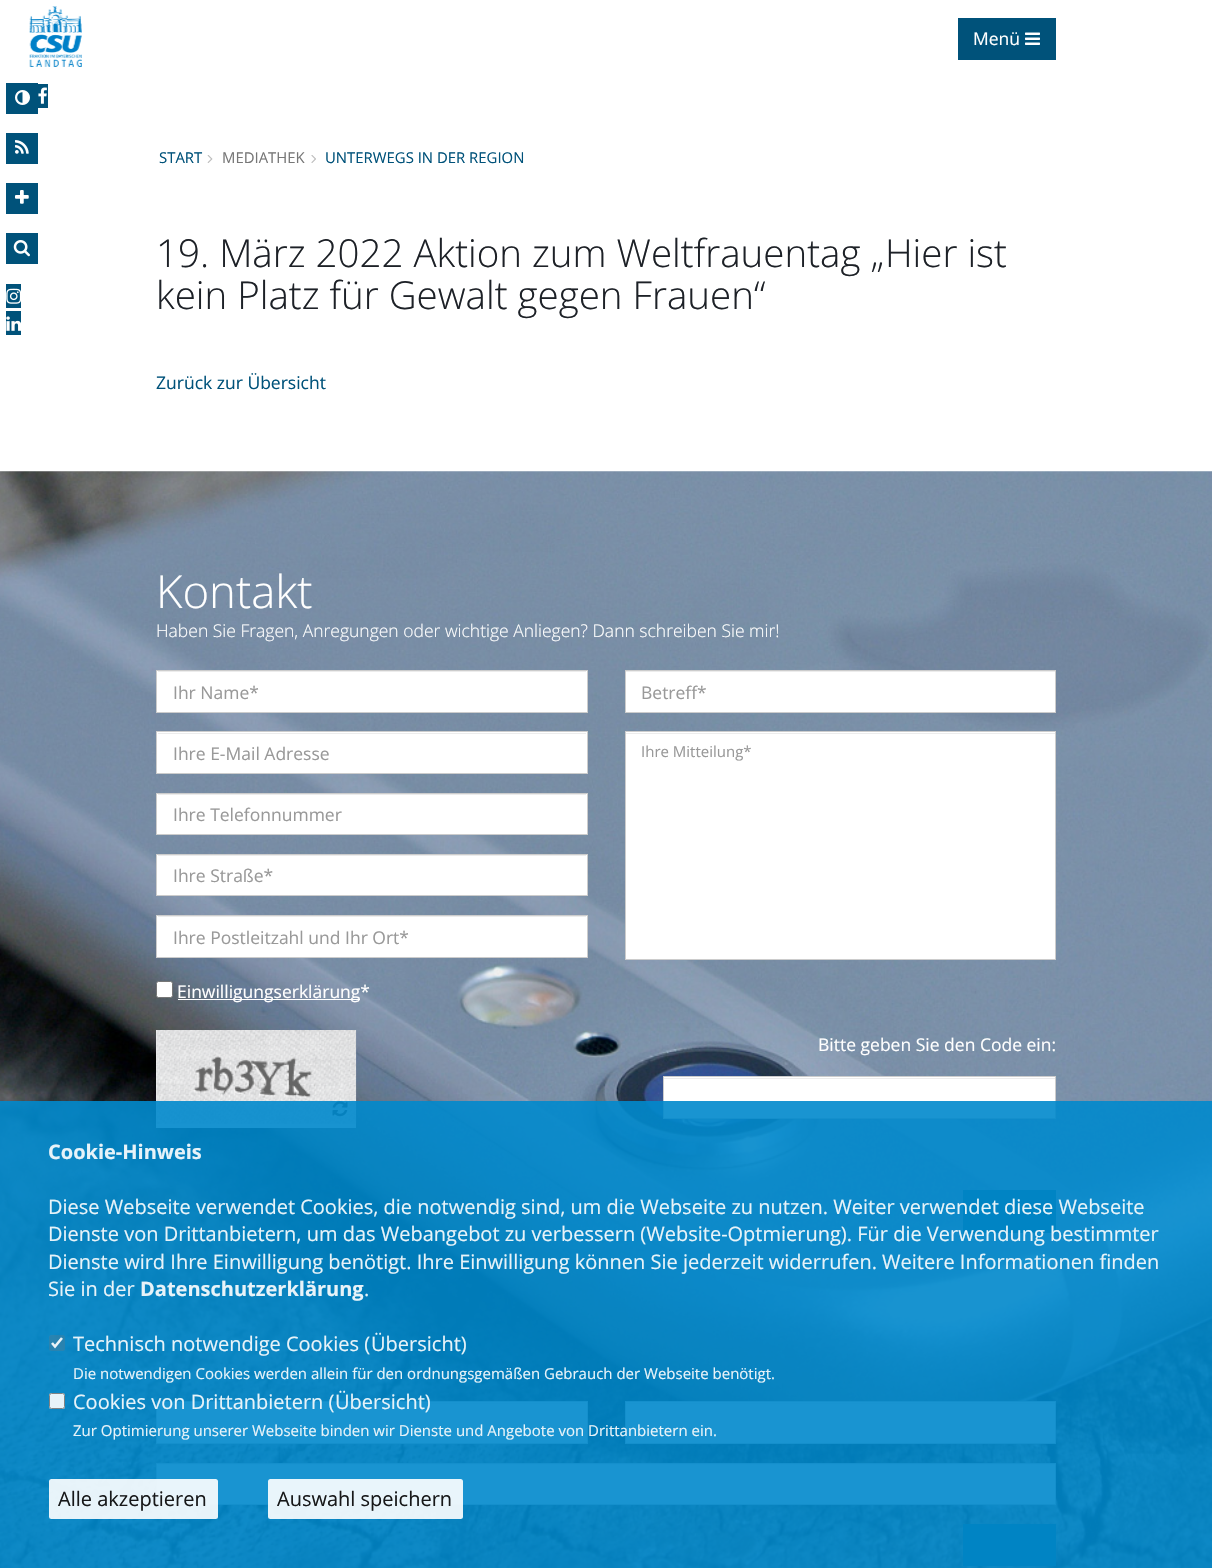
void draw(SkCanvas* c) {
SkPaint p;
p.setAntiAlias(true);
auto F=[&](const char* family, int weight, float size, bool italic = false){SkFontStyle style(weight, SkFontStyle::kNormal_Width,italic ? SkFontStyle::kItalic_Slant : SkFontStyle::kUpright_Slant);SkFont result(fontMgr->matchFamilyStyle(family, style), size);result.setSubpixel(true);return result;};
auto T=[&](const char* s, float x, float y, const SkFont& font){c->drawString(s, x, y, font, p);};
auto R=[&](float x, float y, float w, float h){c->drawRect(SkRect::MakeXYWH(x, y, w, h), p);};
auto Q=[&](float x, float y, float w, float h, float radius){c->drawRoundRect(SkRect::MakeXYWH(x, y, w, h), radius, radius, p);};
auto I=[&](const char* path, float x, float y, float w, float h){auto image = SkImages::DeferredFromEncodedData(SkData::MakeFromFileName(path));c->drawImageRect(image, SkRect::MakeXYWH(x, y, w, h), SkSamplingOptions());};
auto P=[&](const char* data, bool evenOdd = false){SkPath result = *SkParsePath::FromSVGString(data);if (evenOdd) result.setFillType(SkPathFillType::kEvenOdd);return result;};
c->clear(0xffffffff);
p.setColor(0xff00527a);
R(6,83,32,31);
I("1.png",15,90,15,15);
R(38,84,10,24);
I("2.png",38,87,9,17);
R(6,133,32,31);
I("3.png",15,140,14,14);
R(6,183,32,31);
I("4.png",15,190,14,14);
R(6,233,32,31);
I("5.png",13,240,17,17);
R(6,284,15,24);
I("6.png",6,288,15,16);
R(6,311,15,24);
I("7.png",6,316,15,15);
I("8.png",29,6,53,61);
R(958,18,98,42);
auto f1 = F("Open Sans",400,17.5);
p.setColor(0xffffffff);
T("Menü",973,45,f1);
I("9.png",1025,32,15,13);
auto f2 = F("Open Sans",400,14.9);
p.setColor(0xff00527a);
T("START",159,163,f2);
I("10.png",207,155,6,8);
p.setColor(0xff777777);
T("MEDIATHEK",222,163,f2);
I("11.png",311,155,5,8);
p.setColor(0xff00527a);
T("UNTERWEGS IN DER REGION",325,163,f2);
auto f3 = F("Open Sans",300,38.5);
p.setColor(0xff1d2127);
T("19. März 2022 Aktion zum Weltfrauentag „Hier ist",156,267,f3);
T("kein Platz für Gewalt gegen Frauen“",156,309,f3);
p.setColor(0xff00527a);
T("Zurück zur Übersicht",156,389,f1);
I("12.png",0,471,1212,1097);
auto f4 = F("Open Sans",300,45.5);
p.setColor(0xffffffff);
T("Kontakt",156,608,f4);
auto f5 = F("Open Sans",300,17.5);
T("Haben Sie Fragen, Anregungen oder wichtige Anliegen? Dann schreiben Sie mir!",156,637,f5);
R(157,671,430,41);
p.setColor(0xffececec);
R(158,671,428,1);
p.setStroke(true);
p.setStrokeWidth(1);
p.setColor(0xffcccccc);
c->drawRect(SkRect::MakeXYWH(156.5,670.5,431,42),p);
p.setStroke(false);
p.setColor(0xff999999);
T("Ihr Name*",173,699,f1);
p.setColor(0xffffffff);
R(157,732,430,41);
p.setColor(0xffececec);
R(158,733,428,1);
p.setStroke(true);
p.setColor(0xffcccccc);
c->drawRect(SkRect::MakeXYWH(156.5,731.5,431,42),p);
p.setStroke(false);
p.setColor(0xff999999);
T("Ihre E-Mail Adresse",173,760,f1);
p.setColor(0xffffffff);
R(157,794,430,40);
p.setColor(0xffececec);
R(158,794,428,1);
p.setStroke(true);
p.setColor(0xffcccccc);
c->drawRect(SkRect::MakeXYWH(156.5,793.5,431,41),p);
p.setStroke(false);
p.setColor(0xff999999);
T("Ihre Telefonnummer",173,821,f1);
p.setColor(0xffffffff);
R(157,855,430,40);
p.setColor(0xffececec);
R(158,855,428,1);
p.setStroke(true);
p.setColor(0xffcccccc);
c->drawRect(SkRect::MakeXYWH(156.5,854.5,431,41),p);
p.setStroke(false);
p.setColor(0xff999999);
T("Ihre Straße*",173,882,f1);
p.setColor(0xffffffff);
R(157,916,430,41);
p.setColor(0xffececec);
R(158,916,428,1);
p.setStroke(true);
p.setColor(0xffcccccc);
c->drawRect(SkRect::MakeXYWH(156.5,915.5,431,42),p);
p.setStroke(false);
p.setColor(0xff999999);
T("Ihre Postleitzahl und Ihr Ort*",173,944,f1);
p.setColor(0xffffffff);
R(626,672,429,40);
p.setColor(0xffececec);
R(626,671,429,1);
p.setStroke(true);
p.setColor(0xffcccccc);
c->drawRect(SkRect::MakeXYWH(625.5,670.5,430,42),p);
p.setStroke(false);
p.setColor(0xff999999);
T("Betreff*",641,699,f1);
p.setColor(0xffffffff);
R(626,732,429,227);
p.setColor(0xffececec);
R(626,733,429,1);
p.setStroke(true);
p.setColor(0xffcccccc);
c->drawRect(SkRect::MakeXYWH(625.5,731.5,430,228),p);
auto f6 = F("Open Sans",400,15);
p.setStroke(false);
p.setColor(0xff999999);
T("Ihre Mitteilung*",641,757,f6);
p.setColor(0xffffffff);
c->drawRoundRect(SkRect::MakeXYWH(156.5,981.5,16,16),2,2,p);
p.setStroke(true);
p.setColor(0xff767676);
c->drawRoundRect(SkRect::MakeXYWH(156.5,981.5,16,16),2,2,p);
p.setStroke(false);
p.setColor(0xffffffff);
R(178,999,182,1);
T("Einwilligungserklärung*",177,998,f1);
p.setColor(0xfff2f2f2);
R(156,1030,200,98);
I("13.png",156,1030,201,94);
I("14.png",332,1101,16,16);
p.setColor(0xffffffff);
T("Bitte geben Sie den Code ein:",818,1051,f1);
R(664,1077,391,41);
p.setColor(0xffececec);
R(664,1078,391,1);
p.setStroke(true);
p.setColor(0xffcccccc);
c->drawRect(SkRect::MakeXYWH(663.5,1076.5,392,42),p);
p.setStroke(false);
p.setColor(0xff00527a);
R(963,1190,93,43);
p.setColor(0xffffffff);
R(157,1402,430,41);
p.setColor(0xffececec);
R(158,1403,428,1);
p.setStroke(true);
p.setColor(0xffcccccc);
c->drawRect(SkRect::MakeXYWH(156.5,1401.5,431,42),p);
p.setStroke(false);
p.setColor(0xffffffff);
R(626,1402,429,41);
p.setColor(0xffececec);
R(626,1403,429,1);
p.setStroke(true);
p.setColor(0xffcccccc);
c->drawRect(SkRect::MakeXYWH(625.5,1401.5,430,42),p);
p.setStroke(false);
p.setColor(0xffffffff);
R(157,1464,898,40);
p.setColor(0xffececec);
R(158,1464,897,1);
p.setStroke(true);
p.setColor(0xffcccccc);
c->drawRect(SkRect::MakeXYWH(156.5,1463.5,899,41),p);
p.setStroke(false);
p.setColor(0xff00527a);
R(963,1524,93,42);
p.setColor(0xe60088cc);
R(0,1101,1212,467);
auto f7 = F("Open Sans",700,20);
p.setColor(0xffe7f3f9);
T("Cookie-Hinweis",48,1159,f7);
auto f8 = F("Open Sans",400,20);
T("Diese Webseite verwendet Cookies, die notwendig sind, um die Webseite zu nutzen. Weiter verwendet diese Webseite",48,1214,f8);
T("Dienste von Drittanbietern, um das Webangebot zu verbessern (Website-Optmierung). Für die Verwendung bestimmter",48,1241,f8);
T("Dienste wird Ihre Einwilligung benötigt. Ihre Einwilligung können Sie jederzeit widerrufen. Weitere Informationen finden",48,1269,f8);
T("Sie in der",48,1296,f8);
T("Datenschutzerklärung",140,1296,f7);
T(".",364,1296,f8);
p.setColor(0x45767676);
Q(49,1335,16,16,2.5);
p.setStroke(true);
p.setStrokeWidth(2.6);
p.setColor(0xe6ffffff);
c->drawPath(P("M52 1343l3 3.5l7-8.5"),p);
p.setStroke(false);
p.setColor(0xffe7f3f9);
T("Technisch notwendige Cookies (",73,1351,f8);
T("Übersicht)",371,1351,f8);
T("Die notwendigen Cookies werden allein für den ordnungsgemäßen Gebrauch der Webseite benötigt.",73,1379,f6);
p.setColor(0xe6ffffff);
Q(49,1393,16,16,2.5);
p.setStroke(true);
p.setStrokeWidth(1);
p.setColor(0xe6767676);
c->drawRoundRect(SkRect::MakeXYWH(49.5,1393.5,15,15),2,2,p);
p.setStroke(false);
p.setColor(0xffe7f3f9);
T("Cookies von Drittanbietern (",73,1409,f8);
T("Übersicht)",335,1409,f8);
T("Zur Optimierung unserer Webseite binden wir Dienste und Angebote von Drittanbietern ein.",73,1436,f6);
p.setColor(0xe6ffffff);
Q(49,1479,169,40,2.5);
p.setColor(0xff171819);
T("Alle akzeptieren",58,1506,f8);
p.setColor(0xe6ffffff);
Q(268,1479,195,40,2.5);
p.setColor(0xff171819);
T("Auswahl speichern",277,1506,f8);
}
